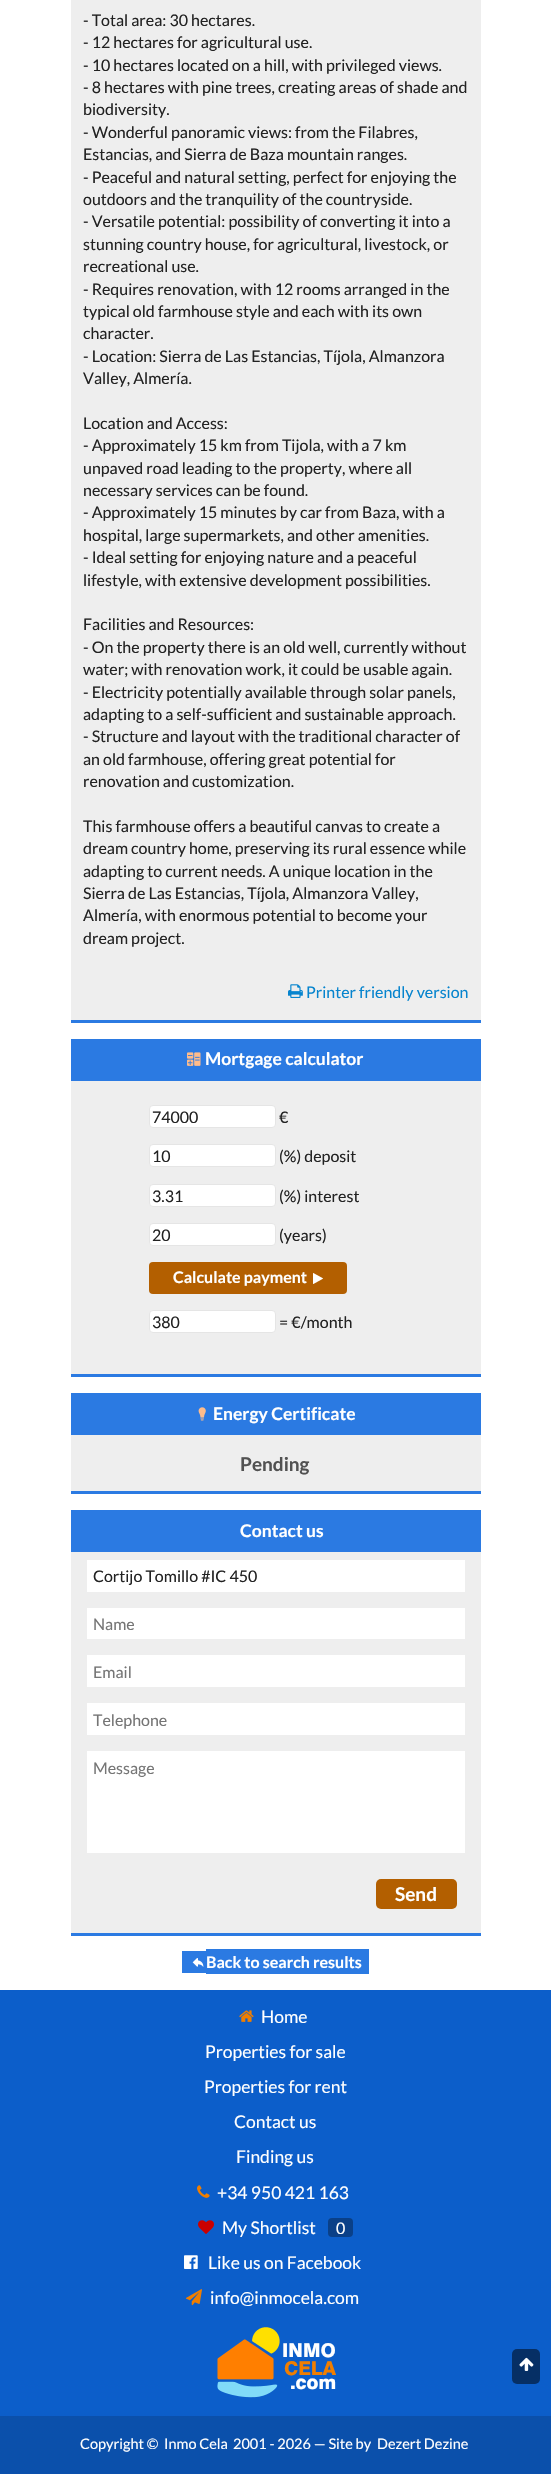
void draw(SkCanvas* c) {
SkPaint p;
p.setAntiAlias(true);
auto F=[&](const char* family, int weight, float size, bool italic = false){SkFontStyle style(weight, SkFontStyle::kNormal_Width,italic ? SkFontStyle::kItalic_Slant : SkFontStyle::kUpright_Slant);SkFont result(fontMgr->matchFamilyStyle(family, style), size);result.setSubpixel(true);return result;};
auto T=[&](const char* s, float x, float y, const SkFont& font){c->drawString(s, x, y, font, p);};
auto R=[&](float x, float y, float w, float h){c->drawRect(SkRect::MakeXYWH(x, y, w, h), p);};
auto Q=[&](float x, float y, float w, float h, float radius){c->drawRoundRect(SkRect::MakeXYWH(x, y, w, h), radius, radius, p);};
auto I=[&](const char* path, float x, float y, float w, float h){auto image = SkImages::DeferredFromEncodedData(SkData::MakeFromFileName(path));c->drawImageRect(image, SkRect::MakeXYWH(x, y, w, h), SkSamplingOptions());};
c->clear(0xffffffff);
p.setColor(0xffeeeeee);
R(71,0,410,1020);
p.setColor(0xff2b7ae2);
R(71,1020,410,3);
auto f1 = F("Lato",400,16);
p.setColor(0xff222222);
T("- Total area: 30 hectares.",83,26,f1);
T("- 12 hectares for agricultural use.",83,48,f1);
T("- 10 hectares located on a hill, with privileged views.",83,71,f1);
T("- 8 hectares with pine trees, creating areas of shade and",83,93,f1);
T("biodiversity.",83,115,f1);
T("- Wonderful panoramic views: from the Filabres,",83,138,f1);
T("Estancias, and Sierra de Baza mountain ranges.",83,160,f1);
T("- Peaceful and natural setting, perfect for enjoying the",83,183,f1);
T("outdoors and the tranquility of the countryside.",83,205,f1);
T("- Versatile potential: possibility of converting it into a",83,227,f1);
T("stunning country house, for agricultural, livestock, or",83,250,f1);
T("recreational use.",83,272,f1);
T("- Requires renovation, with 12 rooms arranged in the",83,295,f1);
T("typical old farmhouse style and each with its own",83,317,f1);
T("character.",83,339,f1);
T("- Location: Sierra de Las Estancias, Tíjola, Almanzora",83,362,f1);
T("Valley, Almería.",83,384,f1);
T("Location and Access:",83,429,f1);
T("- Approximately 15 km from Tijola, with a 7 km",83,451,f1);
T("unpaved road leading to the property, where all",83,474,f1);
T("necessary services can be found.",83,496,f1);
T("- Approximately 15 minutes by car from Baza, with a",83,518,f1);
T("hospital, large supermarkets, and other amenities.",83,541,f1);
T("- Ideal setting for enjoying nature and a peaceful",83,563,f1);
T("lifestyle, with extensive development possibilities.",83,586,f1);
T("Facilities and Resources:",83,630,f1);
T("- On the property there is an old well, currently without",83,653,f1);
T("water; with renovation work, it could be usable again.",83,675,f1);
T("- Electricity potentially available through solar panels,",83,698,f1);
T("adapting to a self-sufficient and sustainable approach.",83,720,f1);
T("- Structure and layout with the traditional character of",83,742,f1);
T("an old farmhouse, offering great potential for",83,765,f1);
T("renovation and customization.",83,787,f1);
T("This farmhouse offers a beautiful canvas to create a",83,832,f1);
T("dream country home, preserving its rural essence while",83,854,f1);
T("adapting to current needs. A unique location in the",83,877,f1);
T("Sierra de Las Estancias, Tíjola, Almanzora Valley,",83,899,f1);
T("Almería, with enormous potential to become your",83,921,f1);
T("dream project.",83,944,f1);
I("1.png",288,984,15,14);
p.setColor(0xff0684ce);
T("Printer friendly version",306,998,f1);
p.setColor(0xffeeeeee);
R(71,1081,410,293);
p.setColor(0xff2b7ae2);
R(71,1374,410,3);
R(71,1039,410,42);
I("2.png",187,1052,14,14);
auto f2 = F("Lato",700,17.5);
p.setColor(0xffffffff);
T("Mortgage calculator",205,1065,f2);
c->drawRoundRect(SkRect::MakeXYWH(149.5,1105.5,126,22),3.5,3.5,p);
p.setStroke(true);
p.setStrokeWidth(1);
p.setColor(0xffe5e5e5);
c->drawRoundRect(SkRect::MakeXYWH(149.5,1105.5,126,22),3.5,3.5,p);
p.setStroke(false);
p.setColor(0xff222222);
T("74000",152,1123,f1);
T("€",279,1123,f1);
p.setColor(0xffffffff);
c->drawRoundRect(SkRect::MakeXYWH(149.5,1144.5,126,22),3.5,3.5,p);
p.setStroke(true);
p.setColor(0xffe5e5e5);
c->drawRoundRect(SkRect::MakeXYWH(149.5,1144.5,126,22),3.5,3.5,p);
p.setStroke(false);
p.setColor(0xff222222);
T("10",152,1162,f1);
T("(%) deposit",279,1162,f1);
p.setColor(0xffffffff);
c->drawRoundRect(SkRect::MakeXYWH(149.5,1184.5,126,22),3.5,3.5,p);
p.setStroke(true);
p.setColor(0xffe5e5e5);
c->drawRoundRect(SkRect::MakeXYWH(149.5,1184.5,126,22),3.5,3.5,p);
p.setStroke(false);
p.setColor(0xff222222);
T("3.31",152,1202,f1);
T("(%) interest",279,1202,f1);
p.setColor(0xffffffff);
c->drawRoundRect(SkRect::MakeXYWH(149.5,1223.5,126,22),3.5,3.5,p);
p.setStroke(true);
p.setColor(0xffe5e5e5);
c->drawRoundRect(SkRect::MakeXYWH(149.5,1223.5,126,22),3.5,3.5,p);
p.setStroke(false);
p.setColor(0xff222222);
T("20",152,1241,f1);
T("(years)",279,1241,f1);
p.setColor(0xffb35f00);
Q(149,1262,198,32,4);
auto f3 = F("Lato",700,16);
p.setColor(0xffffffff);
T("Calculate payment",173,1283,f3);
I("3.png",313,1273,10,11);
c->drawRoundRect(SkRect::MakeXYWH(149.5,1310.5,126,22),3.5,3.5,p);
p.setStroke(true);
p.setColor(0xffe5e5e5);
c->drawRoundRect(SkRect::MakeXYWH(149.5,1310.5,126,22),3.5,3.5,p);
p.setStroke(false);
p.setColor(0xff222222);
T("380",152,1328,f1);
T("= €/month",279,1328,f1);
p.setColor(0xffeeeeee);
R(71,1435,410,56);
p.setColor(0xff2b7ae2);
R(71,1491,410,3);
R(71,1393,410,42);
I("4.png",198,1407,8,14);
p.setColor(0xffffffff);
T("Energy Certificate",213,1420,f2);
auto f4 = F("Lato",700,19);
p.setColor(0xff515151);
T("Pending",240,1471,f4);
p.setColor(0xff2b7ae2);
R(71,1510,410,42);
p.setColor(0xffffffff);
T("Contact us",240,1537,f2);
p.setColor(0xffeeeeee);
R(71,1552,410,381);
p.setColor(0xff2b7ae2);
R(71,1933,410,3);
p.setColor(0xffffffff);
R(87,1560,378,32);
p.setColor(0xff222222);
T("Cortijo Tomillo #IC 450",93,1582,f1);
p.setColor(0xffffffff);
R(87,1608,378,31);
p.setColor(0xff757575);
T("Name",93,1630,f1);
p.setColor(0xffffffff);
R(87,1655,378,32);
p.setColor(0xff757575);
T("Email",93,1678,f1);
p.setColor(0xffffffff);
R(87,1703,378,32);
p.setColor(0xff757575);
T("Telephone",93,1726,f1);
p.setColor(0xffffffff);
R(87,1751,378,102);
p.setColor(0xff757575);
T("Message",93,1774,f1);
p.setColor(0xffb35f00);
Q(376,1879,81,30,5);
p.setColor(0xffffffff);
T("Send",395,1901,f4);
p.setColor(0xff2b7ae2);
R(182,1951,24,22);
I("5.png",192,1958,12,9);
R(206,1949,163,25);
p.setColor(0xffffffff);
T("Back to search results",206,1968,f3);
p.setColor(0xff0c5eca);
R(0,1990,551,426);
I("6.png",239,2010,15,12);
auto f5 = F("Lato",400,17.5);
p.setColor(0xffffffff);
T("Home",261,2023,f5);
T("Properties for sale",205,2058,f5);
T("Properties for rent",204,2093,f5);
T("Contact us",234,2128,f5);
T("Finding us",236,2163,f5);
I("7.png",197,2185,13,13);
T("+34 950 421 163",217,2199,f5);
I("8.png",198,2220,16,14);
T("My Shortlist",222,2234,f5);
p.setColor(0xff0a4088);
Q(328,2218,25,19,4);
p.setColor(0xffffffff);
T("0",336,2234,f1);
I("9.png",184,2255,14,14);
T("Like us on Facebook",208,2269,f5);
I("10.png",186,2289,16,17);
T("info@inmocela.com",210,2304,f5);
I("11.png",217,2327,63,71);
auto f6 = F("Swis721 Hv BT",900,19);
T("INMO",282,2357,f6);
p.setColor(0xfff07e00);
T("CELA",284,2375,f6);
p.setColor(0xffffffff);
T(".com",290,2389,f6);
p.setColor(0xff0b50ab);
R(0,2416,551,58);
auto f7 = F("Lato",400,14.5);
p.setColor(0xffffffff);
T("Copyright ©",80,2449,f7);
T("Inmo Cela",164,2449,f7);
T("2001 - 2026 — Site by",233,2449,f7);
T("Dezert Dezine",377,2449,f7);
p.setColor(0xff062f65);
Q(512,2349,28,35,5);
I("12.png",519,2357,15,14);
}
